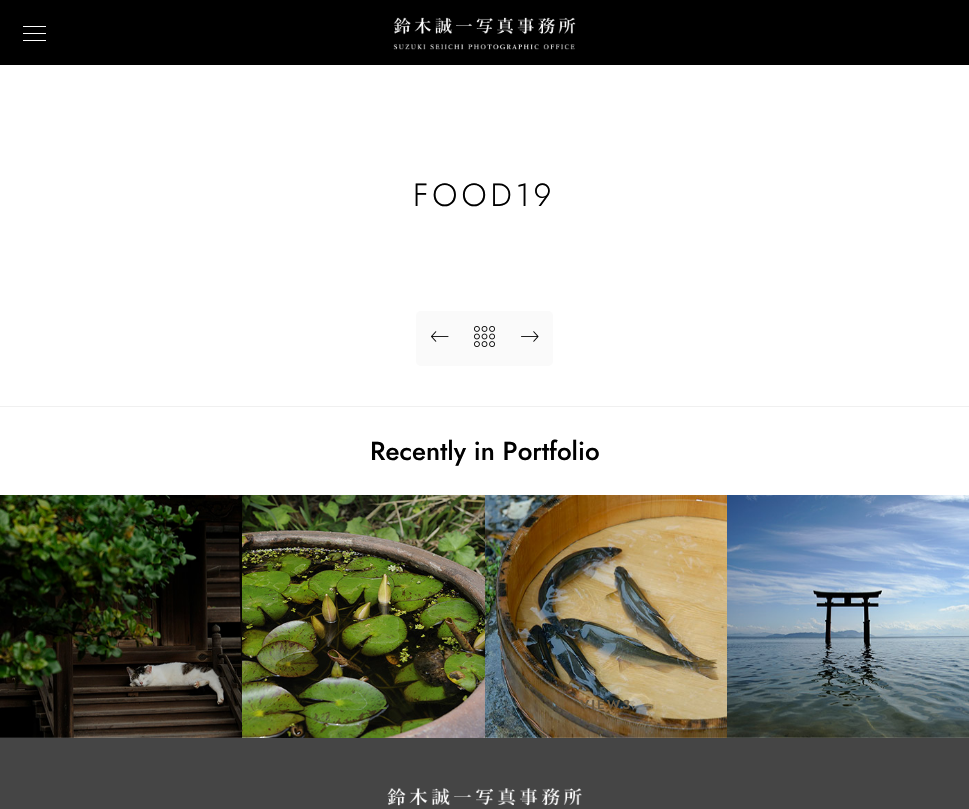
void draw(SkCanvas* c) {
SkPaint p;
p.setAntiAlias(true);
auto F=[&](const char* family, int weight, float size, bool italic = false){SkFontStyle style(weight, SkFontStyle::kNormal_Width,italic ? SkFontStyle::kItalic_Slant : SkFontStyle::kUpright_Slant);SkFont result(fontMgr->matchFamilyStyle(family, style), size);result.setSubpixel(true);return result;};
auto T=[&](const char* s, float x, float y, const SkFont& font){c->drawString(s, x, y, font, p);};
auto L=[&](const char* s, float x, float y, const SkFont& font, const SkPaint& ink, float letter, float word){std::vector<SkGlyphID> glyphs(font.countText(s, strlen(s), SkTextEncoding::kUTF8));std::vector<float> xs(glyphs.size());font.textToGlyphs(s, strlen(s), SkTextEncoding::kUTF8, glyphs);font.getXPos(glyphs, xs, x);float extra = 0;for (size_t i = 0; i < glyphs.size(); i++) {xs[i] += extra;extra += letter + word * (glyphs[i] == font.unicharToGlyph(' '));}c->drawTextBlob(SkTextBlob::MakeFromPosHGlyphs(glyphs, xs, y, font), 0, 0, ink);};
auto R=[&](float x, float y, float w, float h){c->drawRect(SkRect::MakeXYWH(x, y, w, h), p);};
auto Q=[&](float x, float y, float w, float h, float radius){c->drawRoundRect(SkRect::MakeXYWH(x, y, w, h), radius, radius, p);};
auto I=[&](const char* path, float x, float y, float w, float h){auto image = SkImages::DeferredFromEncodedData(SkData::MakeFromFileName(path));c->drawImageRect(image, SkRect::MakeXYWH(x, y, w, h), SkSamplingOptions());};
c->clear(0xffffffff);
p.setColor(0xff000000);
R(0,0,969,65);
I("1.png",393,17,183,33);
p.setColor(0xffffffff);
R(23,33,23,1);
R(23,26,23,1);
R(23,40,23,1);
auto f1 = F("Jost",300,32);
p.setColor(0xff000000);
L("FOOD19",413,206,f1,p,4,0);
p.setColor(0xfffafafa);
Q(416,311,137,55,5);
I("2.png",431,331,18,11);
I("3.png",474,326,21,21);
I("4.png",521,331,18,11);
p.setColor(0xfff0f0f0);
R(0,406,969,1);
auto f2 = F("Jost",500,26);
p.setColor(0xff000000);
T("Recently in Portfolio",370,460,f2);
I("5.png",0,495,242,243);
I("6.png",242,495,243,243);
auto f3 = F("Jost",600,13);
p.setColor(0xff5d802c);
L("2",379,709,f3,p,2,0);
I("7.png",485,495,242,243);
p.setColor(0xff685941);
L("VIEW3",580,709,f3,p,2,0);
I("8.png",727,495,242,243);
p.setColor(0xff454545);
R(0,738,969,71);
I("9.png",387,788,195,18);
}
